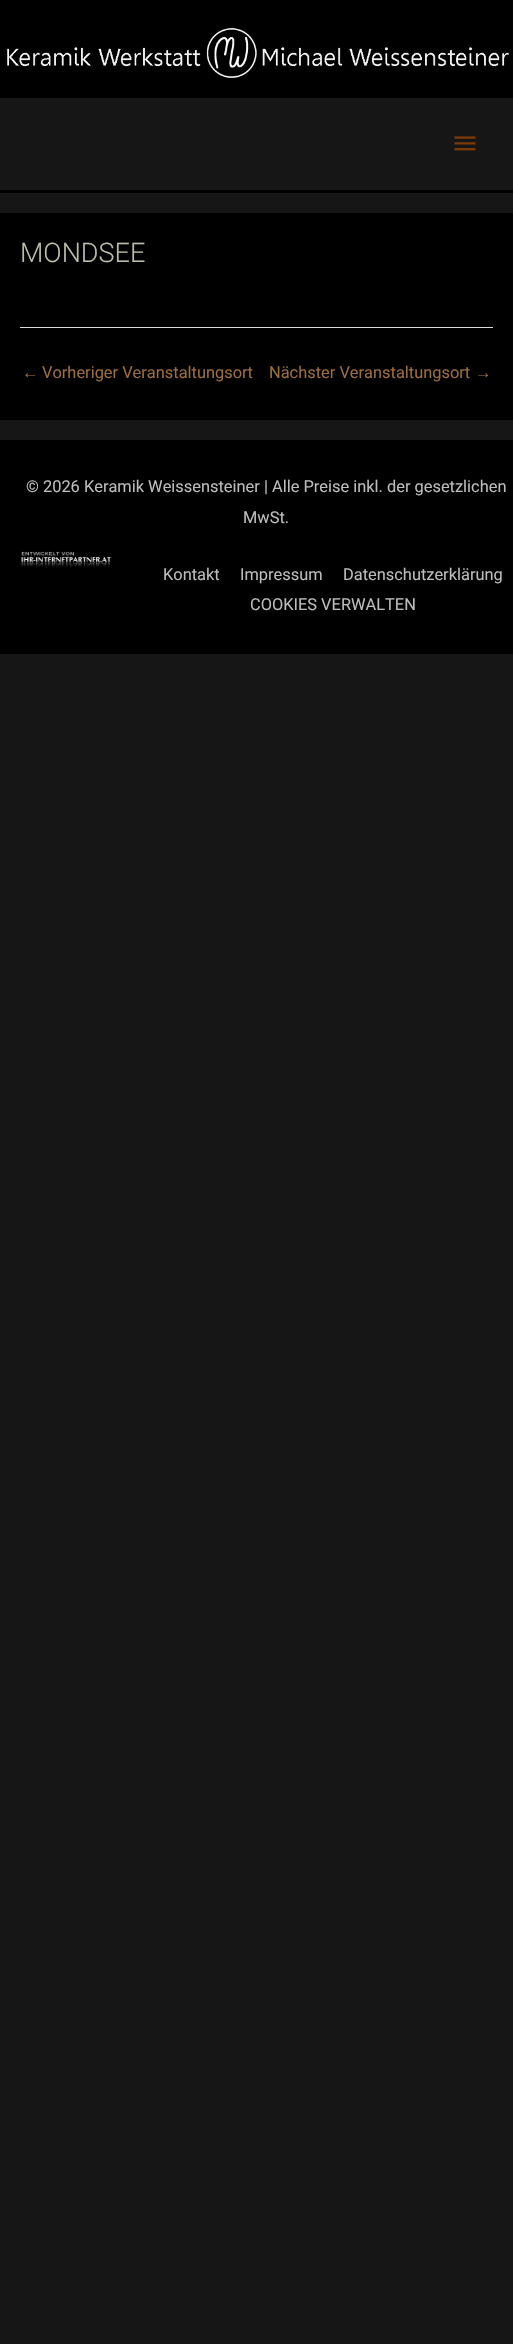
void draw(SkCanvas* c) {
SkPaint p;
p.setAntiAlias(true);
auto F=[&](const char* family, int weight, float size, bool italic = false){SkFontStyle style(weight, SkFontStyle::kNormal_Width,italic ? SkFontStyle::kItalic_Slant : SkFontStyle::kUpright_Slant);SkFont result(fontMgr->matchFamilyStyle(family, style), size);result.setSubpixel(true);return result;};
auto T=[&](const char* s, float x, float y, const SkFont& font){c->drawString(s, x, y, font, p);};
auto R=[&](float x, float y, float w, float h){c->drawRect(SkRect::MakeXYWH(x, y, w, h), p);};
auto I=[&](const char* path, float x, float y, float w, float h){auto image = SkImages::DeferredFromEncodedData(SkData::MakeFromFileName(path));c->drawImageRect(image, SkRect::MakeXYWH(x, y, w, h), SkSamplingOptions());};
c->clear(0xff161616);
p.setColor(0xff000000);
R(0,0,513,98);
I("1.png",7,28,502,50);
R(0,190,513,3);
I("2.png",454,136,22,15);
R(0,213,513,207);
auto f1 = F("Roboto",300,27);
p.setColor(0xffbcbcaa);
T("MONDSEE",20,262,f1);
p.setColor(0xffdddddd);
R(20,327,473,1);
auto f2 = F("Liberation Sans",400,16.4);
p.setColor(0xff9b6c3e);
T("←",22,378,f2);
auto f3 = F("Roboto",400,16.4);
T("Vorheriger Veranstaltungsort",42,378,f3);
T("Nächster Veranstaltungsort",269,378,f3);
T("→",475,378,f2);
p.setColor(0xff000000);
R(0,440,513,214);
p.setColor(0xffbcbcbc);
T("© 2026 Keramik Weissensteiner | Alle Preise inkl. der gesetzlichen",26,492,f3);
T("MwSt.",243,523,f3);
I("3.png",21,551,91,16);
T("Kontakt",163,580,f3);
T("Impressum",240,580,f3);
T("Datenschutzerklärung",343,580,f3);
T("COOKIES VERWALTEN",250,610,f3);
}
